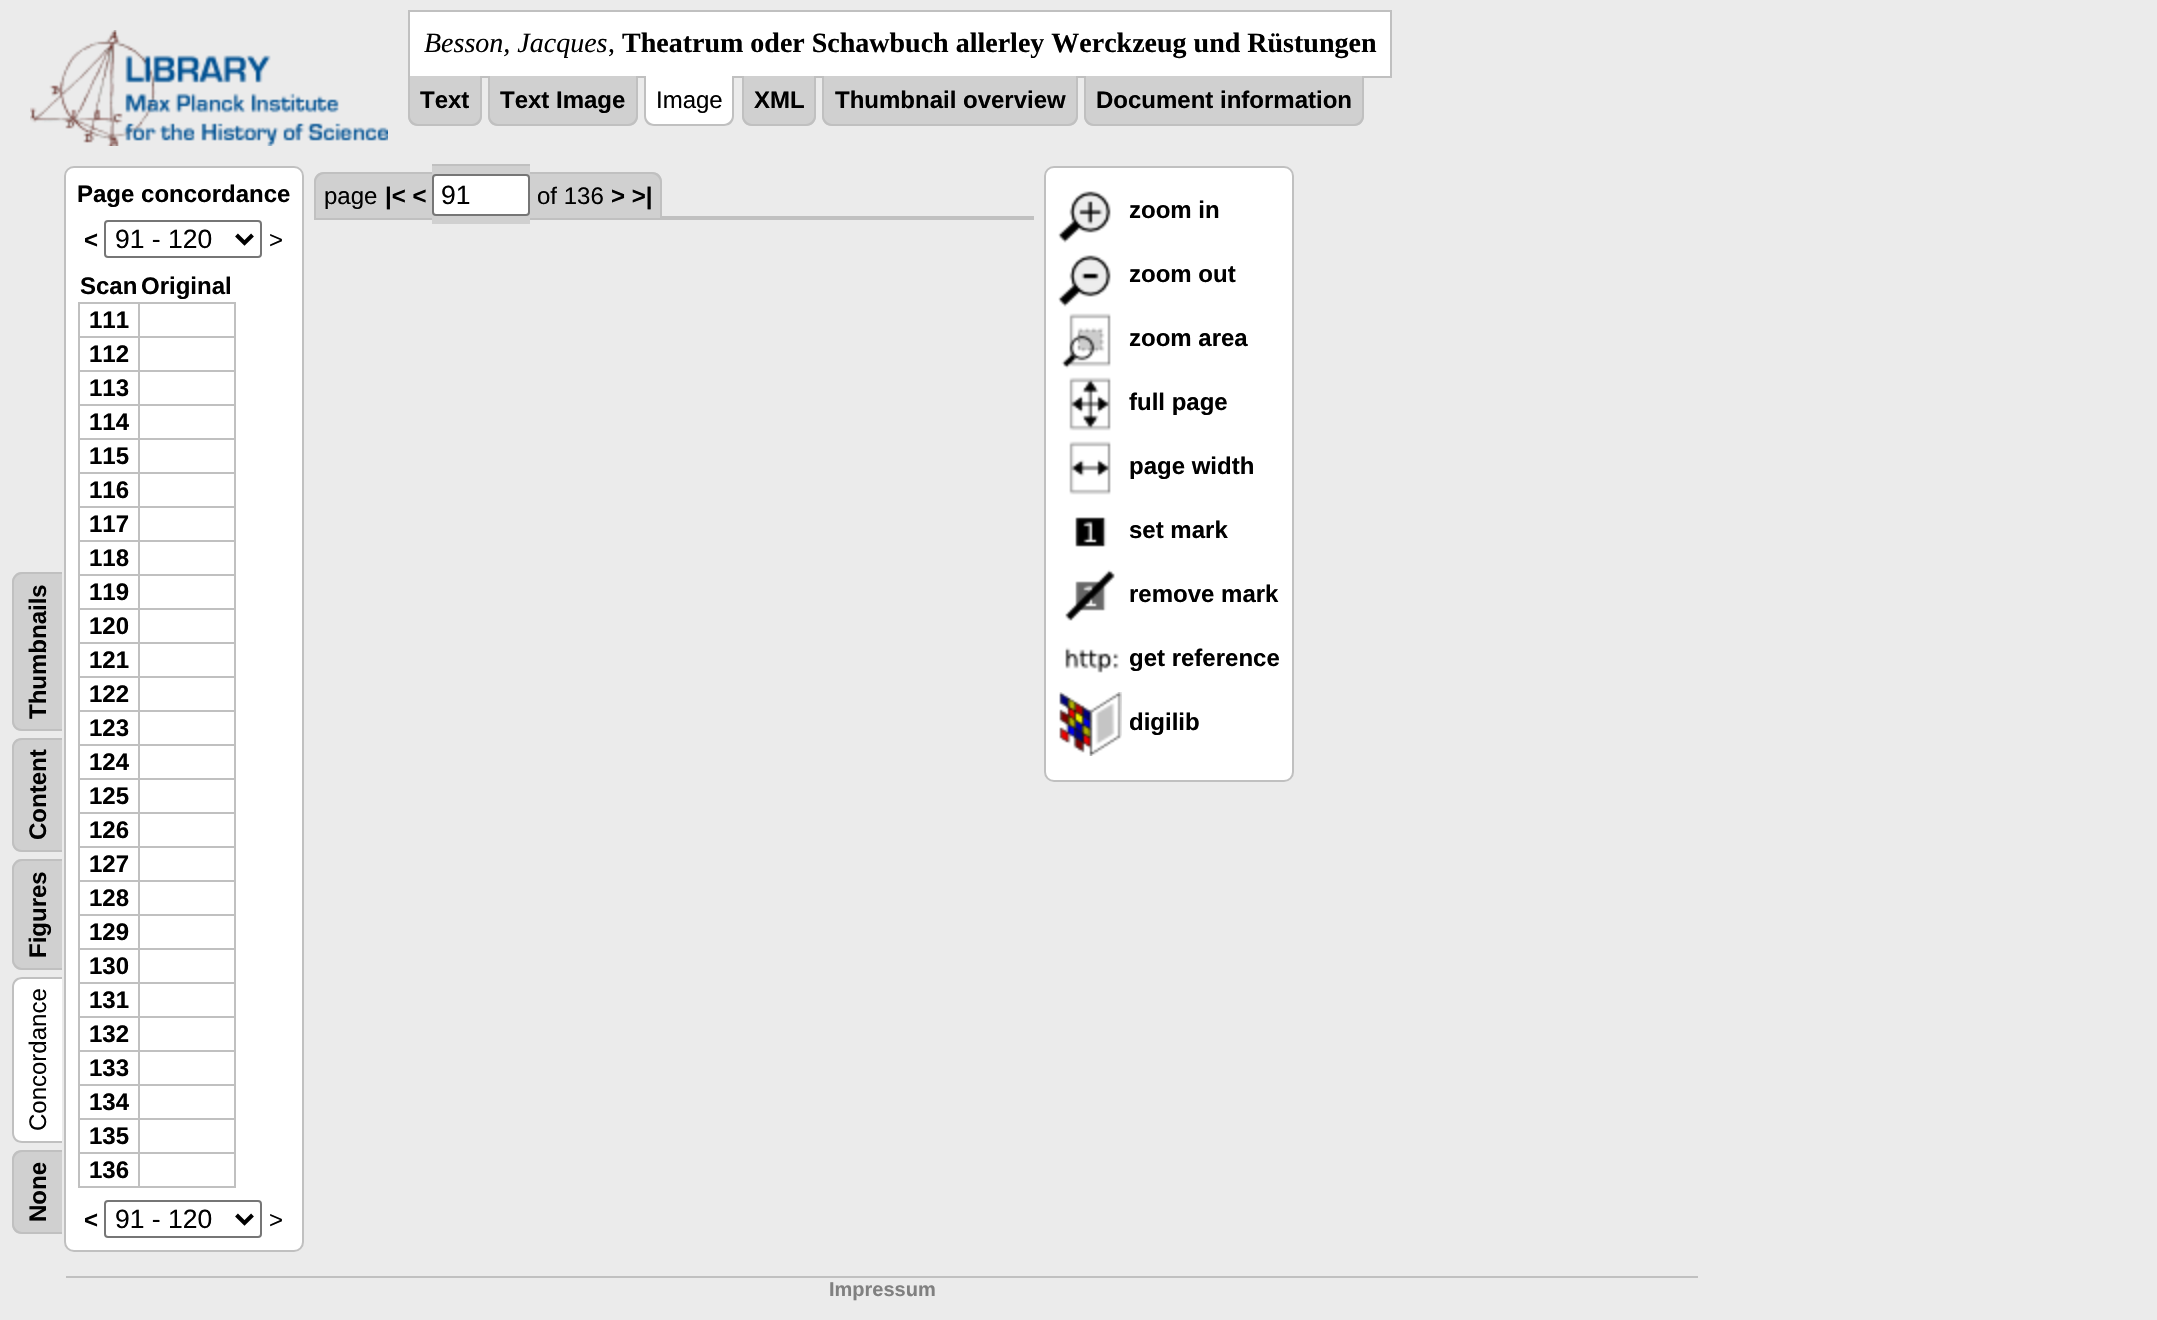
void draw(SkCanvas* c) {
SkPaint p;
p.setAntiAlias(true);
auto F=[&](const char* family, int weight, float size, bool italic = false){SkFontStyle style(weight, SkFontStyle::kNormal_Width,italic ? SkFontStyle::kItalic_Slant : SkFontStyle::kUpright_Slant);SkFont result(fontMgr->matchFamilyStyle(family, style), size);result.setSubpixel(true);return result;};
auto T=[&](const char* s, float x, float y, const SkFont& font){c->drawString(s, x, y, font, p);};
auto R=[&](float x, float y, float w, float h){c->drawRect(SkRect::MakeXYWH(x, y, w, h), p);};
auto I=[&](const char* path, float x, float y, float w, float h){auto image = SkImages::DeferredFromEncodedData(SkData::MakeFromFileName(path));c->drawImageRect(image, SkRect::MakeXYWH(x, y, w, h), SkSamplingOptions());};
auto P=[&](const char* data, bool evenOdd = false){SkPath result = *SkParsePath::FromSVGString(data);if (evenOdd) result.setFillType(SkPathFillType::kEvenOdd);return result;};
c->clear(0xffebebeb);
I("1.png",30,30,358,116);
p.setColor(0xffffffff);
c->drawRect(SkRect::MakeXYWH(409,11,982,66),p);
p.setStroke(true);
p.setStrokeWidth(2);
p.setColor(0xffc0c0c0);
c->drawRect(SkRect::MakeXYWH(409,11,982,66),p);
auto f1 = F("Liberation Serif",400,28,true);
p.setStroke(false);
p.setColor(0xff000000);
T("Besson, Jacques",424,52,f1);
auto f2 = F("Liberation Serif",400,28);
T(",",608,52,f2);
auto f3 = F("Liberation Serif",700,28);
T("Theatrum oder Schawbuch allerley Werckzeug und Rüstungen",622,52,f3);
p.setColor(0xffd0d0d0);
c->drawPath(P("M408 76h74v40c0 5.5-4.5 10-10 10h-54c-5.5 0-10-4.5-10-10z"),p);
p.setColor(0xffc0c0c0);
c->drawPath(P("M408 76h74v40c0 6-4 10-10 10h-54c-6 0-10-4-10-10zm2 0h70v40c0 4-4 8-8 8h-54c-4 0-8-4-8-8z",true),p);
auto f4 = F("Liberation Sans",700,24);
p.setColor(0xff000000);
T("Text",420,108,f4);
p.setColor(0xffd0d0d0);
c->drawPath(P("M488 76h150v40c0 5.5-4.5 10-10 10h-130c-5.5 0-10-4.5-10-10z"),p);
p.setColor(0xffc0c0c0);
c->drawPath(P("M488 76h150v40c0 6-4 10-10 10h-130c-6 0-10-4-10-10zm2 0h146v40c0 4-4 8-8 8h-130c-4 0-8-4-8-8z",true),p);
p.setColor(0xff000000);
T("Text Image",500,108,f4);
p.setColor(0xffffffff);
c->drawPath(P("M644 76h90v40c0 5.5-4.5 10-10 10h-70c-5.5 0-10-4.5-10-10z"),p);
p.setColor(0xffc0c0c0);
c->drawPath(P("M644 76h90v40c0 6-4 10-10 10h-70c-6 0-10-4-10-10zm2 0h86v40c0 4-4 8-8 8h-70c-4 0-8-4-8-8z",true),p);
auto f5 = F("Liberation Sans",400,24);
p.setColor(0xff000000);
T("Image",656,108,f5);
p.setColor(0xffd0d0d0);
c->drawPath(P("M742 76h74v40c0 5.5-4.5 10-10 10h-54c-5.5 0-10-4.5-10-10z"),p);
p.setColor(0xffc0c0c0);
c->drawPath(P("M742 76h74v40c0 6-4 10-10 10h-54c-6 0-10-4-10-10zm2 0h70v40c0 4-4 8-8 8h-54c-4 0-8-4-8-8z",true),p);
p.setColor(0xff000000);
T("XML",754,108,f4);
p.setColor(0xffd0d0d0);
c->drawPath(P("M822 76h256v40c0 5.5-4.5 10-10 10h-236c-5.5 0-10-4.5-10-10z"),p);
p.setColor(0xffc0c0c0);
c->drawPath(P("M822 76h256v40c0 6-4 10-10 10h-236c-6 0-10-4-10-10zm2 0h252v40c0 4-4 8-8 8h-236c-4 0-8-4-8-8z",true),p);
p.setColor(0xff000000);
T("Thumbnail overview",835,108,f4);
p.setColor(0xffd0d0d0);
c->drawPath(P("M1084 76h280v40c0 5.5-4.5 10-10 10h-260c-5.5 0-10-4.5-10-10z"),p);
p.setColor(0xffc0c0c0);
c->drawPath(P("M1084 76h280v40c0 6-4 10-10 10h-260c-6 0-10-4-10-10zm2 0h276v40c0 4-4 8-8 8h-260c-4 0-8-4-8-8z",true),p);
p.setColor(0xff000000);
T("Document information",1096,108,f4);
p.setColor(0xffd0d0d0);
c->drawPath(P("M12 721v-139c0-5 4-10 10-10h40v159h-40c-6 0-10-4-10-10z"),p);
p.setColor(0xffc0c0c0);
c->drawPath(P("M12 721v-139c0-5 4-10 10-10h40v159h-40c-6 0-10-4-10-10zm2 0v-139c0-4 4-8 8-8h40v155h-40c-4 0-8-3-8-8z",true),p);
p.setColor(0xff000000);
c->save();
c->rotate(-90,46,719);
T("Thumbnails",46,719,f4);
c->restore();
p.setColor(0xffd0d0d0);
c->drawPath(P("M12 842v-94c0-6 4-10 10-10h40v114h-40c-6 0-10-4-10-10z"),p);
p.setColor(0xffc0c0c0);
c->drawPath(P("M12 842v-94c0-6 4-10 10-10h40v114h-40c-6 0-10-4-10-10zm2 0v-94c0-5 4-8 8-8h40v110h-40c-4 0-8-3-8-8z",true),p);
p.setColor(0xff000000);
c->save();
c->rotate(-90,46,840);
T("Content",46,840,f4);
c->restore();
p.setColor(0xffd0d0d0);
c->drawPath(P("M12 960v-91c0-5 4-10 10-10h40v111h-40c-6 0-10-5-10-10z"),p);
p.setColor(0xffc0c0c0);
c->drawPath(P("M12 960v-91c0-5 4-10 10-10h40v111h-40c-6 0-10-5-10-10zm2 0v-91c0-4 4-8 8-8h40v107h-40c-4 0-8-4-8-8z",true),p);
p.setColor(0xff000000);
c->save();
c->rotate(-90,46,958);
T("Figures",46,958,f4);
c->restore();
p.setColor(0xffffffff);
c->drawPath(P("M12 1133v-146c0-6 4-10 10-10h40v166h-40c-6 0-10-4-10-10z"),p);
p.setColor(0xffc0c0c0);
c->drawPath(P("M12 1133v-146c0-6 4-10 10-10h40v166h-40c-6 0-10-4-10-10zm2 0v-146c0-5 4-8 8-8h40v162h-40c-4 0-8-3-8-8z",true),p);
p.setColor(0xff000000);
c->save();
c->rotate(-90,46,1131);
T("Concordance",46,1131,f5);
c->restore();
p.setColor(0xffd0d0d0);
c->drawPath(P("M12 1224v-64c0-6 4-10 10-10h40v84h-40c-6 0-10-4-10-10z"),p);
p.setColor(0xffc0c0c0);
c->drawPath(P("M12 1224v-64c0-6 4-10 10-10h40v84h-40c-6 0-10-4-10-10zm2 0v-64c0-4 4-8 8-8h40v80h-40c-4 0-8-4-8-8z",true),p);
p.setColor(0xff000000);
c->save();
c->rotate(-90,46,1222);
T("None",46,1222,f4);
c->restore();
p.setColor(0xffffffff);
c->drawRoundRect(SkRect::MakeXYWH(65,167,238,1084),9,9,p);
p.setStroke(true);
p.setColor(0xffc0c0c0);
c->drawRoundRect(SkRect::MakeXYWH(65,167,238,1084),9,9,p);
p.setStroke(false);
p.setColor(0xff000000);
T("Page concordance",77,202,f4);
T("<",84,248,f4);
p.setStroke(true);
p.setColor(0xff767676);
c->drawRoundRect(SkRect::MakeXYWH(105,221,156,36),3,3,p);
p.setStrokeWidth(4);
p.setColor(0xff000000);
c->drawPath(P("M236.5 235l8 8l8-8"),p);
auto f6 = F("Liberation Sans",400,26.5);
p.setStroke(false);
T("91 - 120",115,248,f6);
T(">",269,248,f5);
T("Scan",80,294,f4);
T("Original",141,294,f4);
p.setColor(0xffc0c0c0);
R(138,302,98,2);
R(138,336,98,2);
R(138,370,98,2);
R(138,404,98,2);
R(138,438,98,2);
R(138,472,98,2);
R(138,506,98,2);
R(138,540,98,2);
R(138,574,98,2);
R(138,608,98,2);
R(138,642,98,2);
R(138,676,98,2);
R(138,710,98,2);
R(138,744,98,2);
R(138,778,98,2);
R(138,812,98,2);
R(138,846,98,2);
R(138,880,98,2);
R(138,914,98,2);
R(138,948,98,2);
R(138,982,98,2);
R(138,1016,98,2);
R(138,1050,98,2);
R(138,1084,98,2);
R(138,1118,98,2);
R(138,1152,98,2);
R(234,1152,2,36);
R(138,1186,98,2);
R(138,1152,2,36);
R(78,1152,62,2);
R(138,1118,2,36);
R(78,1118,62,2);
R(138,1084,2,36);
R(78,1084,62,2);
R(138,1050,2,36);
R(78,1050,62,2);
R(138,1016,2,36);
R(78,1016,62,2);
R(138,982,2,36);
R(78,982,62,2);
R(138,948,2,36);
R(78,948,62,2);
R(138,914,2,36);
R(78,914,62,2);
R(138,880,2,36);
R(78,880,62,2);
R(138,846,2,36);
R(78,846,62,2);
R(138,812,2,36);
R(78,812,62,2);
R(138,778,2,36);
R(78,778,62,2);
R(138,744,2,36);
R(78,744,62,2);
R(138,710,2,36);
R(78,710,62,2);
R(138,676,2,36);
R(78,676,62,2);
R(138,642,2,36);
R(78,642,62,2);
R(138,608,2,36);
R(78,608,62,2);
R(138,574,2,36);
R(78,574,62,2);
R(138,540,2,36);
R(78,540,62,2);
R(138,506,2,36);
R(78,506,62,2);
R(138,472,2,36);
R(78,472,62,2);
R(138,438,2,36);
R(78,438,62,2);
R(138,404,2,36);
R(78,404,62,2);
R(138,370,2,36);
R(78,370,62,2);
R(138,336,2,36);
R(78,336,62,2);
R(138,302,2,36);
R(78,302,62,2);
R(78,1186,62,2);
R(78,1152,2,36);
R(78,1118,2,36);
R(78,1084,2,36);
R(78,1050,2,36);
R(78,1016,2,36);
R(78,982,2,36);
R(78,948,2,36);
R(78,914,2,36);
R(78,880,2,36);
R(78,846,2,36);
R(78,812,2,36);
R(78,778,2,36);
R(78,744,2,36);
R(78,710,2,36);
R(78,676,2,36);
R(78,642,2,36);
R(78,608,2,36);
R(78,574,2,36);
R(78,540,2,36);
R(78,506,2,36);
R(78,472,2,36);
R(78,438,2,36);
R(78,404,2,36);
R(78,370,2,36);
R(78,336,2,36);
R(78,302,2,36);
p.setColor(0xff000000);
T("111",89,328,f4);
p.setColor(0xffc0c0c0);
R(234,1118,2,36);
R(234,1084,2,36);
R(234,1050,2,36);
R(234,1016,2,36);
R(234,982,2,36);
R(234,948,2,36);
R(234,914,2,36);
R(234,880,2,36);
R(234,846,2,36);
R(234,812,2,36);
R(234,778,2,36);
R(234,744,2,36);
R(234,710,2,36);
R(234,676,2,36);
R(234,642,2,36);
R(234,608,2,36);
R(234,574,2,36);
R(234,540,2,36);
R(234,506,2,36);
R(234,472,2,36);
R(234,438,2,36);
R(234,404,2,36);
R(234,370,2,36);
R(234,336,2,36);
R(234,302,2,36);
p.setColor(0xff000000);
T("112",89,362,f4);
T("113",89,396,f4);
T("114",89,430,f4);
T("115",89,464,f4);
T("116",89,498,f4);
T("117",89,532,f4);
T("118",89,566,f4);
T("119",89,600,f4);
T("120",89,634,f4);
T("121",89,668,f4);
T("122",89,702,f4);
T("123",89,736,f4);
T("124",89,770,f4);
T("125",89,804,f4);
T("126",89,838,f4);
T("127",89,872,f4);
T("128",89,906,f4);
T("129",89,940,f4);
T("130",89,974,f4);
T("131",89,1008,f4);
T("132",89,1042,f4);
T("133",89,1076,f4);
T("134",89,1110,f4);
T("135",89,1144,f4);
T("136",89,1178,f4);
T("<",84,1228,f4);
p.setStroke(true);
p.setStrokeWidth(2);
p.setColor(0xff767676);
c->drawRoundRect(SkRect::MakeXYWH(105,1201,156,36),3,3,p);
p.setStrokeWidth(4);
p.setColor(0xff000000);
c->drawPath(P("M236.5 1215l8 8l8-8"),p);
p.setStroke(false);
T("91 - 120",115,1228,f6);
T(">",269,1228,f5);
p.setColor(0xffc0c0c0);
R(314,216,720,4);
p.setColor(0xffd0d0d0);
c->drawPath(P("M324 172h60v46h-70v-36c0-5.5 4.5-10 10-10z"),p);
p.setColor(0xffc0c0c0);
c->drawPath(P("M324 172h60v46h-70v-36c0-6 4-10 10-10zm0 2h60v44h-68v-36c0-4 4-8 8-8z",true),p);
p.setColor(0xffd0d0d0);
R(384,174,22,44);
p.setColor(0xffc0c0c0);
R(384,172,22,2);
p.setColor(0xffd0d0d0);
R(406,172,6,46);
p.setColor(0xffc0c0c0);
R(406,172,20,2);
p.setColor(0xffd0d0d0);
R(412,174,14,44);
R(426,172,6,46);
p.setColor(0xffc0c0c0);
R(426,172,6,2);
p.setColor(0xffd0d0d0);
R(432,166,98,58);
p.setColor(0xffc0c0c0);
R(432,164,98,2);
p.setColor(0xffd0d0d0);
R(530,172,8,46);
p.setColor(0xffc0c0c0);
R(530,172,94,2);
p.setColor(0xffd0d0d0);
R(538,174,86,44);
R(624,172,8,46);
p.setColor(0xffc0c0c0);
R(624,172,8,2);
p.setColor(0xffd0d0d0);
c->drawPath(P("M632 172h20c5.5 0 10 4.5 10 10v36h-30z"),p);
p.setColor(0xffc0c0c0);
c->drawPath(P("M632 172h20c6 0 10 4 10 10v36h-30zm0 2h20c4 0 8 4 8 8v36h-28z",true),p);
p.setColor(0xff000000);
T("page",324,204,f5);
T("|< <",385,204,f4);
p.setColor(0xffffffff);
c->drawRoundRect(SkRect::MakeXYWH(433,175,96,40),3,3,p);
p.setStroke(true);
p.setStrokeWidth(2);
p.setColor(0xff767676);
c->drawRoundRect(SkRect::MakeXYWH(433,175,96,40),3,3,p);
p.setStroke(false);
p.setColor(0xff000000);
T("91",441,204,f6);
T("of 136",537,204,f5);
T("> >|",611,204,f4);
p.setColor(0xffffffff);
c->drawRoundRect(SkRect::MakeXYWH(1045,167,248,614),9,9,p);
p.setStroke(true);
p.setColor(0xffc0c0c0);
c->drawRoundRect(SkRect::MakeXYWH(1045,167,248,614),9,9,p);
I("2.png",1058,191,53,52);
p.setStroke(false);
p.setColor(0xff000000);
T("zoom in",1129,218,f4);
I("3.png",1058,255,53,52);
T("zoom out",1129,282,f4);
I("4.png",1061,313,50,56);
T("zoom area",1129,346,f4);
I("5.png",1069,377,42,54);
T("full page",1129,410,f4);
I("6.png",1069,441,42,54);
T("page width",1129,474,f4);
I("7.png",1075,517,32,30);
T("set mark",1129,538,f4);
I("8.png",1065,569,50,52);
T("remove mark",1129,602,f4);
I("9.png",1065,647,54,26);
T("get reference",1129,666,f4);
I("10.png",1059,692,63,64);
T("digilib",1129,730,f4);
p.setColor(0xffc0c0c0);
R(66,1276,1632,2);
auto f7 = F("Liberation Sans",700,20);
p.setColor(0xff808080);
T("Impressum",829,1296,f7);
}
